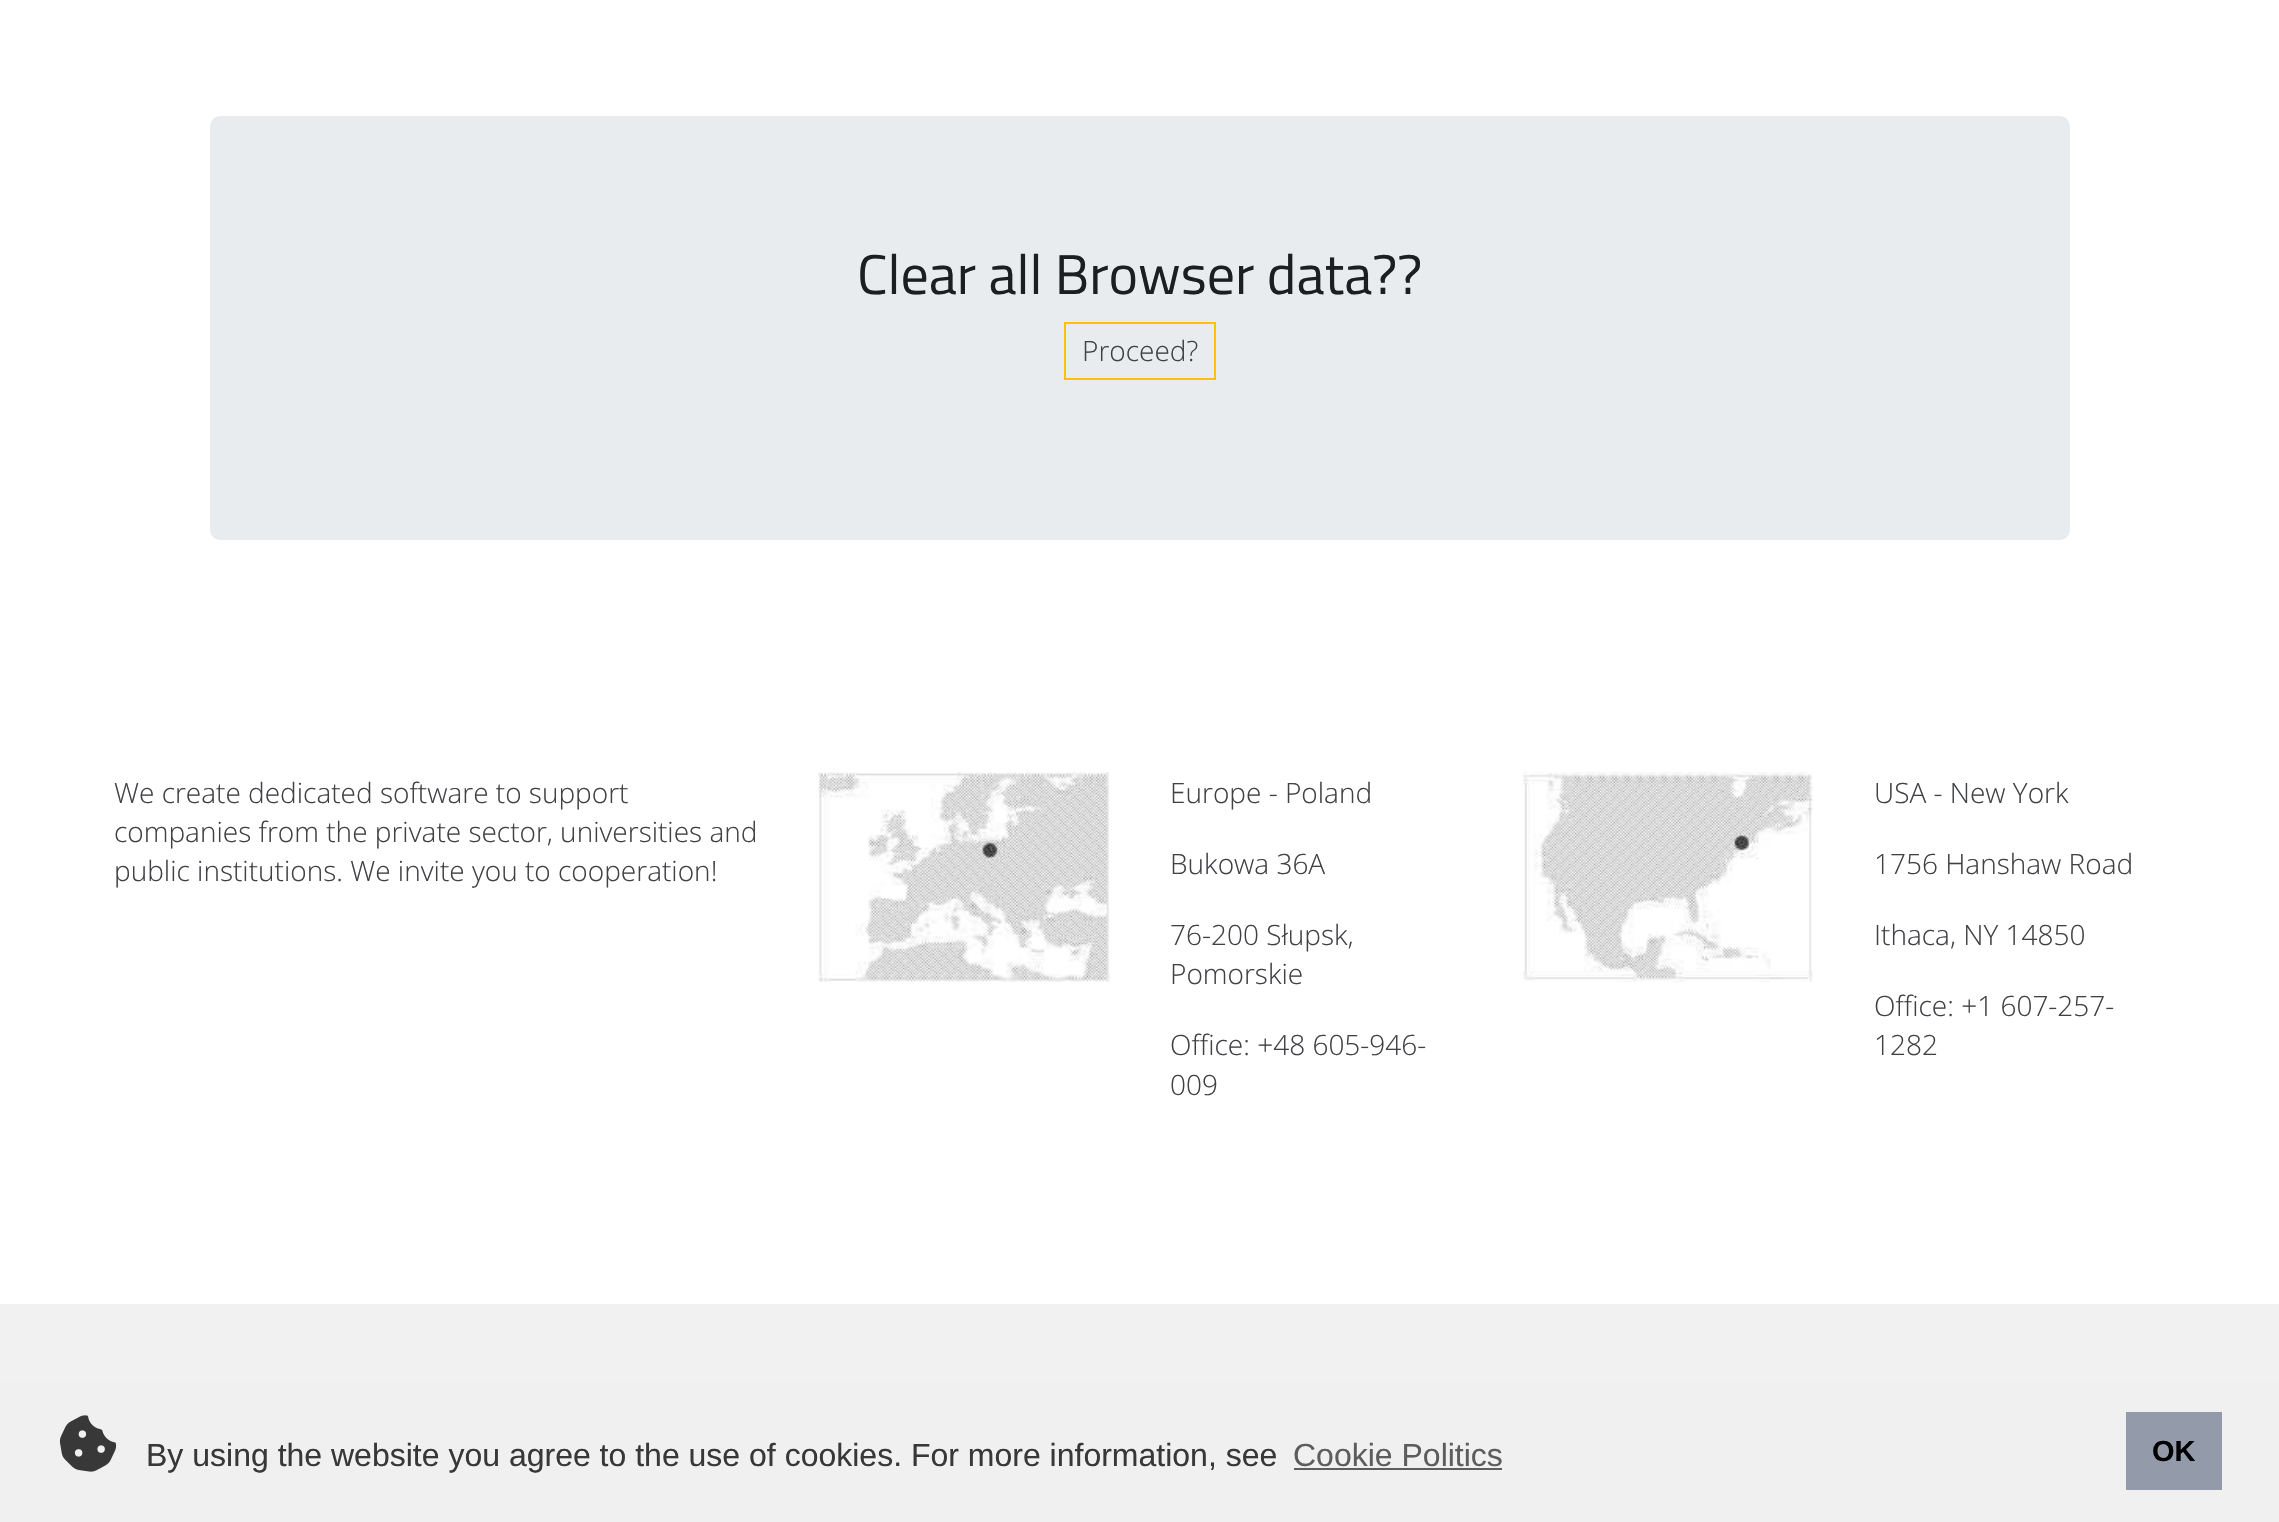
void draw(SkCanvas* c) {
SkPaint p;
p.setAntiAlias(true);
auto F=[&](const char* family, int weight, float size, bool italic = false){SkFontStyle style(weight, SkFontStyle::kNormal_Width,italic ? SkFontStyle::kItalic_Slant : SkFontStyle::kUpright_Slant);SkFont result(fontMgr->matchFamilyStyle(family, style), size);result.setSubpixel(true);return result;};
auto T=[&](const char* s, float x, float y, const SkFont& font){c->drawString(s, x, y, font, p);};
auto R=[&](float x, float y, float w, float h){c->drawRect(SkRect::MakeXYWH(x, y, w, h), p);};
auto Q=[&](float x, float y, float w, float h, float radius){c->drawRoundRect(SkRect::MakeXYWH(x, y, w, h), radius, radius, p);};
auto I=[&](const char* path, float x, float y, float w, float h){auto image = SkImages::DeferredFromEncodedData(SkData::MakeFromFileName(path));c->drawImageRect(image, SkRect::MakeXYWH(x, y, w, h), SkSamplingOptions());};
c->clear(0xffffffff);
p.setColor(0xffe9ecef);
Q(210,116,1860,424,10);
auto f1 = F("Titillium Web",400,56);
p.setColor(0xff1d1e20);
T("Clear all Browser data?\077",857,294,f1);
p.setStroke(true);
p.setStrokeWidth(2);
p.setColor(0xffffc107);
c->drawRect(SkRect::MakeXYWH(1065,323,150,56),p);
auto f2 = F("Open Sans",300,28);
p.setStroke(false);
p.setColor(0xff3f4144);
T("Proceed?",1082,361,f2);
T("We create dedicated software to support",114,803,f2);
T("companies from the private sector, universities and",114,842,f2);
T("public institutions. We invite you to cooperation!",114,881,f2);
I("1.png",818,772,292,210);
T("Europe - Poland",1170,803,f2);
T("Bukowa 36A",1170,874,f2);
T("76-200 Słupsk,",1170,945,f2);
T("Pomorskie",1170,984,f2);
T("Office: +48 605-946-",1170,1055,f2);
T("009",1170,1095,f2);
I("2.png",1522,772,292,210);
T("USA - New York",1874,803,f2);
T("1756 Hanshaw Road",1874,874,f2);
T("Ithaca, NY 14850",1874,945,f2);
T("Office: +1 607-257-",1874,1016,f2);
T("1282",1874,1055,f2);
p.setColor(0xfff1f1f1);
R(0,1304,2279,76);
p.setColor(0xfff0f0f0);
R(0,1380,2279,142);
I("3.png",59,1415,58,57);
auto f3 = F("Liberation Sans",400,32);
p.setColor(0xff383838);
T("By using the website you agree to the use of cookies. For more information, see",146,1466,f3);
p.setColor(0xff5d5d5d);
T("Cookie Politics",1293,1466,f3);
R(1294,1468,208,2);
p.setColor(0xff939bab);
R(2126,1412,96,78);
auto f4 = F("Liberation Sans",700,29);
p.setColor(0xff000000);
T("OK",2152,1461,f4);
}
